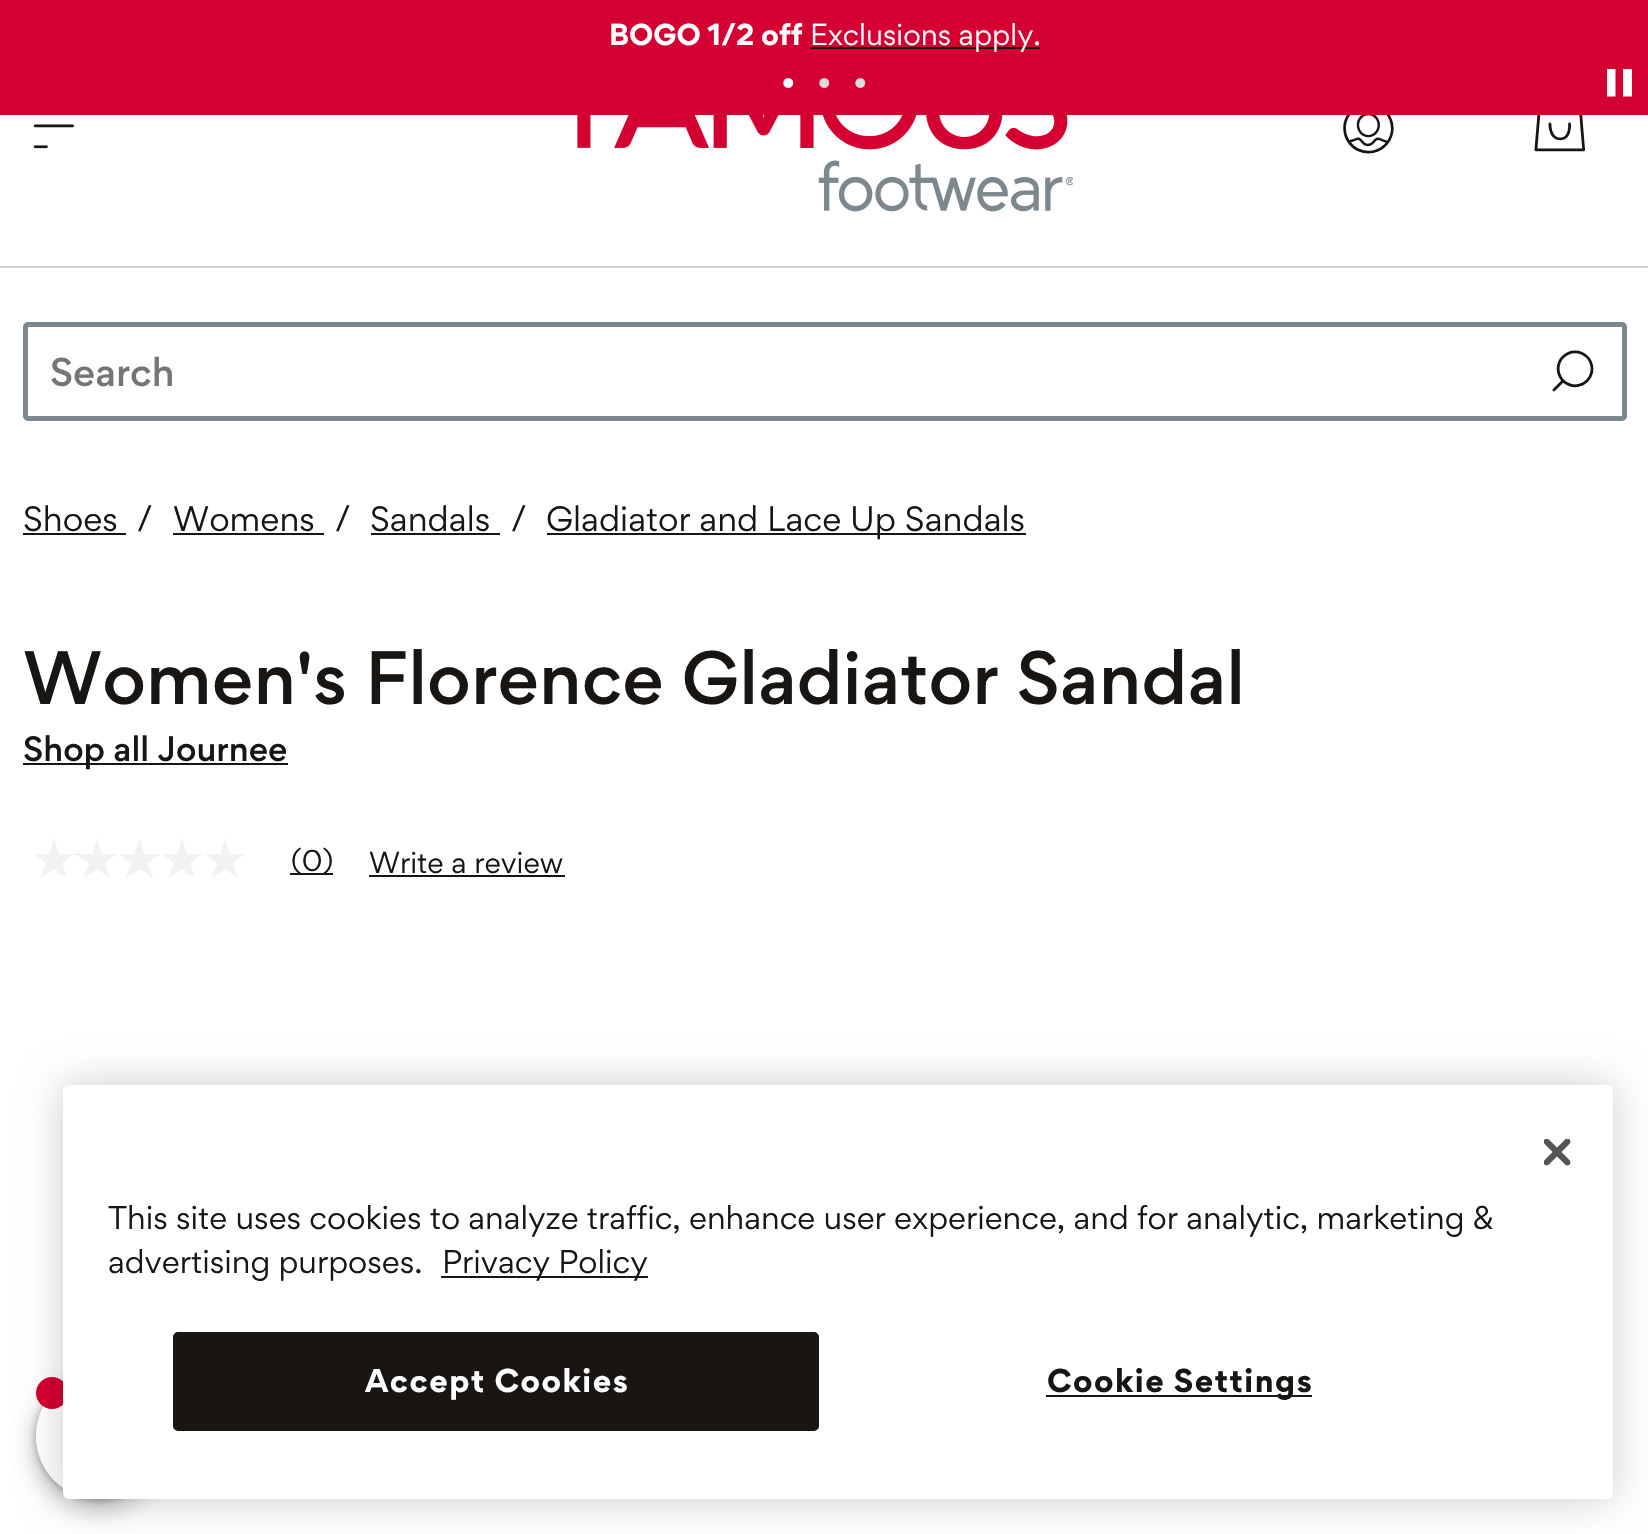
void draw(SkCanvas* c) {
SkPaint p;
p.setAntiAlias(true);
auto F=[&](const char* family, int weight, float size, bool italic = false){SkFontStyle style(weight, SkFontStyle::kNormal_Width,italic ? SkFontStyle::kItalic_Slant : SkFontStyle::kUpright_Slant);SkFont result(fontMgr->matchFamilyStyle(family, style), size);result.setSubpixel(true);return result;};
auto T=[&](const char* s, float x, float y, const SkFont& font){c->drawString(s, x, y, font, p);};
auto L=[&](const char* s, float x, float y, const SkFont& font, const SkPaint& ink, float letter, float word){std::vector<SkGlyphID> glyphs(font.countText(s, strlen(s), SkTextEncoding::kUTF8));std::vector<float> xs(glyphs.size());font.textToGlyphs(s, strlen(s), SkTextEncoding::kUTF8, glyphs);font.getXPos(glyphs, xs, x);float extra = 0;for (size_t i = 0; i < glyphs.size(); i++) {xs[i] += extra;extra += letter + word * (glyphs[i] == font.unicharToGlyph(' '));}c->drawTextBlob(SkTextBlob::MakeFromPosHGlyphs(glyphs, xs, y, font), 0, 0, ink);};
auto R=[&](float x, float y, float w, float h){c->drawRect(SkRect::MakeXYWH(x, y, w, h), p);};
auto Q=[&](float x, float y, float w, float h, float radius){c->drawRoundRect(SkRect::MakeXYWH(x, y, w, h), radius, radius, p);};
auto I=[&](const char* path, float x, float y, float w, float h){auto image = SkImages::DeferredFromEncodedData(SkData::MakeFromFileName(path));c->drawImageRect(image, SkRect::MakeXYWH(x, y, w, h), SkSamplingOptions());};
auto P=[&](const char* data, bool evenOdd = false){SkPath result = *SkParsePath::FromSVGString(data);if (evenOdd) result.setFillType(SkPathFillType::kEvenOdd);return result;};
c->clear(0xffffffff);
p.setColor(0xffd50032);
R(0,0,1648,115);
auto f1 = F("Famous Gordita",700,27);
p.setColor(0xffffffff);
T("BOGO 1/2 off",609,45,f1);
p.setColor(0xff181513);
R(810,47,230,2);
c->save();
c->clipRect(SkRect::MakeXYWH(0,0,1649,52));
auto f2 = F("Famous Gordita",400,27);
p.setColor(0xffffffff);
T("Exclusions apply.",810,45,f2);
c->restore();
auto f3 = F("Liberation Sans",400,36);
T("•",782,95,f3);
p.setColor(0xffdddddd);
T("•",818,95,f3);
T("•",854,95,f3);
p.setColor(0xffffffff);
c->drawPath(P("M1607 69v27.5h8.5v-27.5zm16 0v27.5h9v-27.5z"),p);
I("1.png",33,124,41,25);
I("2.png",577,115,496,97);
I("3.png",1343,115,51,39);
I("4.png",1534,115,51,37);
p.setColor(0xffd0d3d4);
R(0,266,1648,2);
p.setStroke(true);
p.setStrokeWidth(5);
p.setColor(0xff7c878e);
c->drawRoundRect(SkRect::MakeXYWH(25.5,324.5,1599,94),2.5,2.5,p);
auto f4 = F("Famous Gordita",500,36);
p.setStroke(false);
p.setColor(0xff757575);
T("Search",50,386,f4);
I("5.png",1552,350,42,42);
c->save();
c->clipPath(P("M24 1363h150v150h-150zm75 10c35 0 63 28 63 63c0 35-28 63-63 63c-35 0-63-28-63-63c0-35 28-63 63-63z",true),true);
p.setColor(0x4d000000);
p.setMaskFilter(SkMaskFilter::MakeBlur(kNormal_SkBlurStyle, 3.5));
c->drawRoundRect(SkRect::MakeXYWH(36,1375,126,126),63,63,p);
p.setMaskFilter(nullptr);
c->restore();
c->save();
c->clipPath(P("M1 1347h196v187h-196zm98 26c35 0 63 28 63 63c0 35-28 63-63 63c-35 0-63-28-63-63c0-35 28-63 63-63z",true),true);
p.setColor(0x26000000);
p.setMaskFilter(SkMaskFilter::MakeBlur(kNormal_SkBlurStyle, 9));
c->drawRoundRect(SkRect::MakeXYWH(29,1375,140,139),69.5,69.5,p);
p.setMaskFilter(nullptr);
c->restore();
p.setColor(0xf2ffffff);
c->drawCircle(99,1436,63,p);
p.setColor(0xffd50032);
c->drawCircle(52,1393,16,p);
auto f5 = F("Famous Gordita",400,31.5);
p.setColor(0xff181513);
T("Shoes",23,531,f5);
R(23,533,103,2);
T("/",137,531,f5);
T("Womens",173,531,f5);
R(173,533,151,2);
T("/",335,531,f5);
T("Sandals",370,531,f5);
R(371,533,129,2);
T("/",511,531,f5);
R(547,533,479,2);
T("Gladiator and Lace Up Sandals",546,531,f5);
auto f6 = F("Famous Gordita",500,67.5);
T("Women's Florence Gladiator Sandal",23,704,f6);
R(23,763,265,2);
auto f7 = F("Famous Gordita",500,31.5);
T("Shop all Journee",23,761,f7);
{
const SkColor colors[] = {0xffd50032,0xfff2f1f3};
const float stops[] = {0,.01};
const SkPoint ends[] = {{34,839}, {74,839}};
p.setShader(SkGradientShader::MakeLinear(ends, colors, stops, 2, SkTileMode::kClamp));
p.setAlpha(255);
}
c->drawPath(P("M74 854h-15l-5-15l-5 15h-15l12 9l-5 15l13-9l13 9l-5-15z"),p);
{
const SkColor colors[] = {0xffd50032,0xfff2f1f3};
const float stops[] = {0,.01};
const SkPoint ends[] = {{77,839}, {117,839}};
p.setShader(SkGradientShader::MakeLinear(ends, colors, stops, 2, SkTileMode::kClamp));
p.setAlpha(255);
}
c->drawPath(P("M117 854h-15l-5-15l-5 15h-16l13 9l-5 15l13-9l13 9l-5-15z"),p);
{
const SkColor colors[] = {0xffd50032,0xfff2f1f3};
const float stops[] = {0,.01};
const SkPoint ends[] = {{119,839}, {160,839}};
p.setShader(SkGradientShader::MakeLinear(ends, colors, stops, 2, SkTileMode::kClamp));
p.setAlpha(255);
}
c->drawPath(P("M160 854h-16l-4-15l-6 15h-15l12 9l-5 15l14-9l13 9l-5-15z"),p);
{
const SkColor colors[] = {0xffd50032,0xfff2f1f3};
const float stops[] = {0,.01};
const SkPoint ends[] = {{162,839}, {203,839}};
p.setShader(SkGradientShader::MakeLinear(ends, colors, stops, 2, SkTileMode::kClamp));
p.setAlpha(255);
}
c->drawPath(P("M202 854h-15l-5-15l-5 15h-15l12 9l-5 15l13-9l13 9l-5-15z"),p);
{
const SkColor colors[] = {0xffd50032,0xfff2f1f3};
const float stops[] = {0,.01};
const SkPoint ends[] = {{205,839}, {245,839}};
p.setShader(SkGradientShader::MakeLinear(ends, colors, stops, 2, SkTileMode::kClamp));
p.setAlpha(255);
}
c->drawPath(P("M245 854h-15l-5-15l-5 15h-15l12 9l-5 15l13-9l13 9l-5-15z"),p);
p.setShader(nullptr);
p.setColor(0xff181513);
R(290,873,43,2);
T("(0)",291,871,f2);
T("Write a review",369,873,f2);
R(369,875,196,2);
p.setColor(0x33000000);
p.setMaskFilter(SkMaskFilter::MakeBlur(kNormal_SkBlurStyle, 20));
c->drawRoundRect(SkRect::MakeXYWH(63,1085,1550,414),6,6,p);
p.setMaskFilter(nullptr);
p.setColor(0xffffffff);
Q(63,1085,1550,414,6);
I("6.png",1544,1139,27,27);
auto f8 = F("Famous Gordita",400,29.5);
p.setColor(0xff181513);
T("This site uses cookies to analyze traffic, enhance user experience, and for analytic, marketing &",108,1229,f8);
T("advertising purposes.",108,1273,f8);
R(441,1276,207,2);
T("Privacy Policy",442,1273,f8);
c->drawRoundRect(SkRect::MakeXYWH(174,1333,644,97),4,4,p);
p.setStroke(true);
p.setStrokeWidth(2);
c->drawRoundRect(SkRect::MakeXYWH(174,1333,644,97),4,4,p);
auto f9 = F("Famous Gordita",700,29.5);
p.setStroke(false);
p.setColor(0xffffffff);
L("Accept Cookies",365,1392,f9,p,1.5,0);
p.setColor(0xff181513);
R(1046,1395,266,2);
L("Cookie Settings",1047,1392,f9,p,1.5,0);
}
